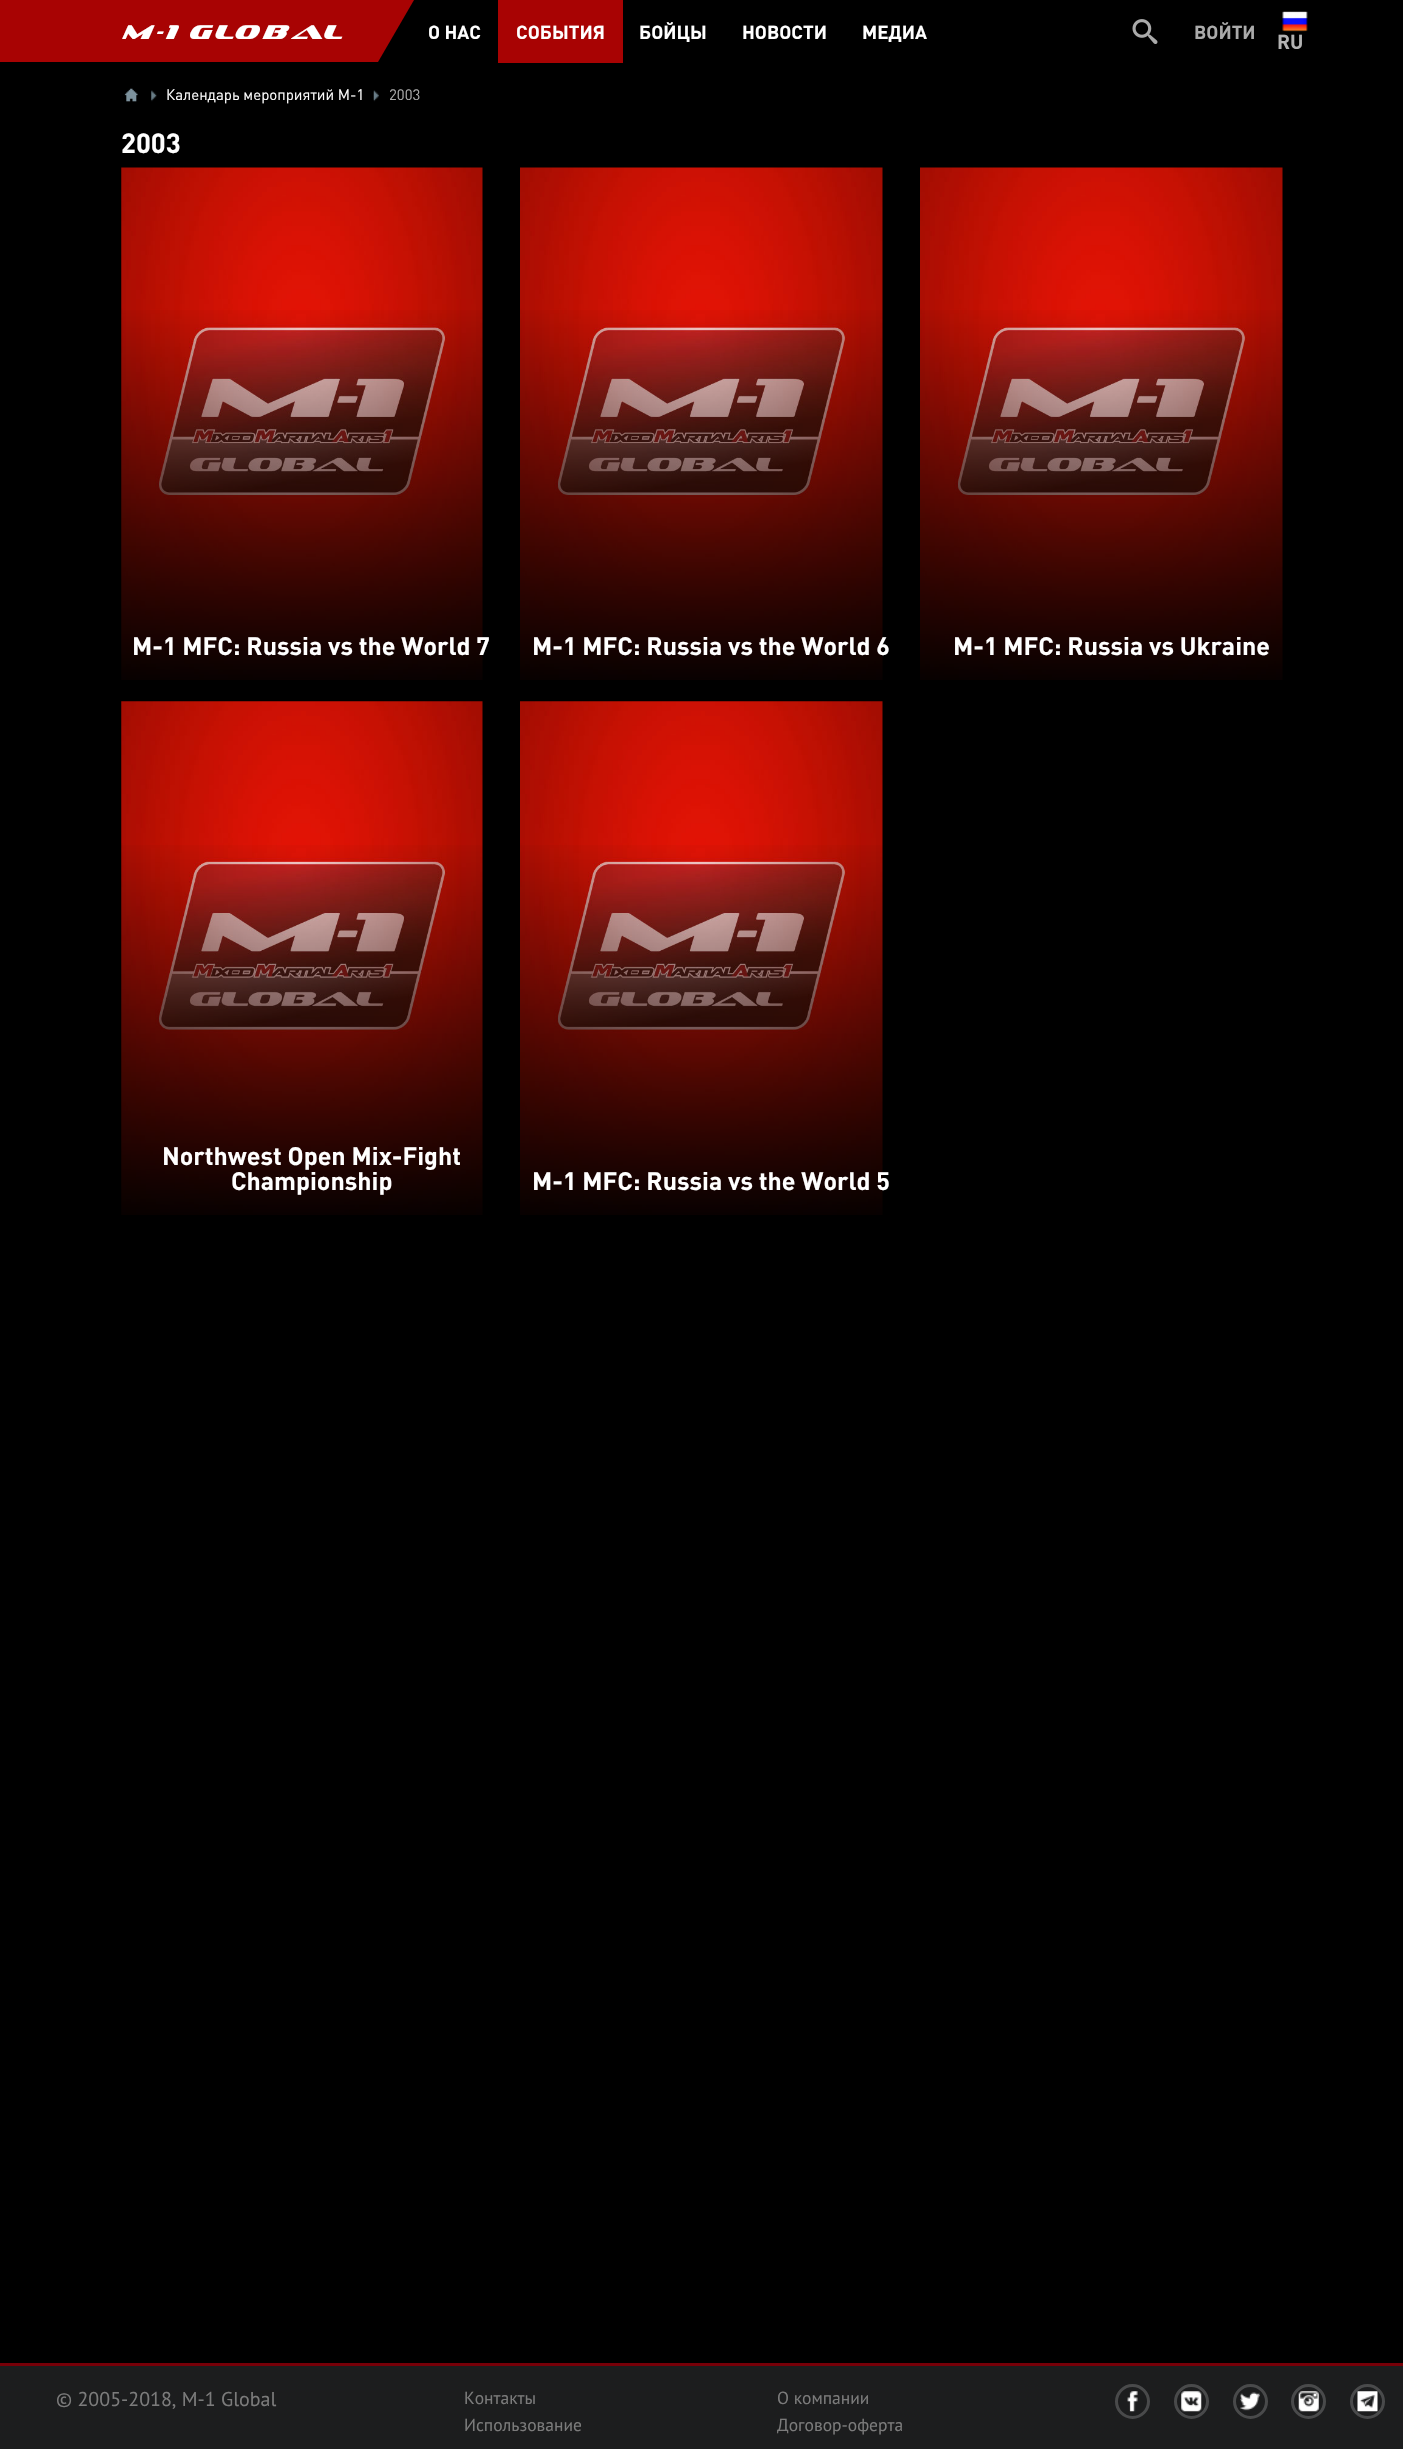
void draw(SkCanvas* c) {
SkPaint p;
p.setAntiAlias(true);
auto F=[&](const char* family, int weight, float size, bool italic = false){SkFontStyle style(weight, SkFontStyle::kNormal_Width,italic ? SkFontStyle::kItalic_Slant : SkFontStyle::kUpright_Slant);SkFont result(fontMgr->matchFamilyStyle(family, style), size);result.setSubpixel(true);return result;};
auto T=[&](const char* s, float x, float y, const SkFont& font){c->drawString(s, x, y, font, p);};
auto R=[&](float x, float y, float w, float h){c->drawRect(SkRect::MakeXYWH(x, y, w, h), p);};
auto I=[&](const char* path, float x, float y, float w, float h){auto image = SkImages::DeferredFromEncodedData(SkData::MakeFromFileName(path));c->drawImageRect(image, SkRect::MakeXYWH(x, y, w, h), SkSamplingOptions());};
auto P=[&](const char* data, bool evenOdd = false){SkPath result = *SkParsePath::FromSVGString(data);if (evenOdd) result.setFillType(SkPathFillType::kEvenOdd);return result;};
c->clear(0xff000000);
p.setColor(0xffa80303);
c->drawPath(P("M-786 0h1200l-36 62h-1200z"),p);
auto f1 = F("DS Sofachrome",400,20,true);
p.setColor(0xffffffff);
T("M-1 GLOBAL",121,39,f1);
auto f2 = F("DIN",700,18.75);
T("О НАС",428,39,f2);
p.setColor(0xffa80303);
R(498,0,125,63);
p.setColor(0xffffffff);
T("СОБЫТИЯ",516,39,f2);
T("БОЙЦЫ",639,39,f2);
T("НОВОСТИ",742,39,f2);
T("МЕДИА",862,39,f2);
I("1.png",1132,19,26,25);
p.setColor(0xffaaaaaa);
T("ВОЙТИ",1194,39,f2);
I("2.png",1282,11,26,21);
auto f3 = F("DIN",700,20);
p.setColor(0xffb3b3b3);
T("RU",1277,49,f3);
I("3.png",124,88,14,14);
I("4.png",151,90,6,12);
auto f4 = F("DIN",400,15);
p.setColor(0xffffffff);
T("Календарь мероприятий M-1",166,100,f4);
I("5.png",373,90,6,12);
p.setColor(0xffaaaaaa);
T("2003",389,100,f4);
auto f5 = F("DIN",700,27.5);
p.setColor(0xffffffff);
T("2003",121,153,f5);
I("6.png",121,167,362,513);
{
const SkColor colors[] = {0x00000000,0xff000000};
const float stops[] = {0,1};
const SkPoint ends[] = {{302,301}, {302,701}};
p.setShader(SkGradientShader::MakeLinear(ends, colors, stops, 2, SkTileMode::kClamp));
p.setAlpha(255);
}
R(121,310,362,370);
auto f6 = F("DIN",700,25);
p.setShader(nullptr);
p.setColor(0xffffffff);
T("M-1 MFC: Russia vs the World 7",132,655,f6);
I("7.png",520,167,363,513);
{
const SkColor colors[] = {0x00000000,0xff000000};
const float stops[] = {0,1};
const SkPoint ends[] = {{701,301}, {701,701}};
p.setShader(SkGradientShader::MakeLinear(ends, colors, stops, 2, SkTileMode::kClamp));
p.setAlpha(255);
}
R(520,310,363,370);
p.setShader(nullptr);
p.setColor(0xffffffff);
T("M-1 MFC: Russia vs the World 6",532,655,f6);
I("8.png",920,167,363,513);
{
const SkColor colors[] = {0x00000000,0xff000000};
const float stops[] = {0,1};
const SkPoint ends[] = {{1101,301}, {1101,701}};
p.setShader(SkGradientShader::MakeLinear(ends, colors, stops, 2, SkTileMode::kClamp));
p.setAlpha(255);
}
R(920,310,363,370);
p.setShader(nullptr);
p.setColor(0xffffffff);
T("M-1 MFC: Russia vs Ukraine",953,655,f6);
I("9.png",121,701,362,514);
{
const SkColor colors[] = {0x00000000,0xff000000};
const float stops[] = {0,1};
const SkPoint ends[] = {{302,836}, {302,1236}};
p.setShader(SkGradientShader::MakeLinear(ends, colors, stops, 2, SkTileMode::kClamp));
p.setAlpha(255);
}
R(121,845,362,370);
p.setShader(nullptr);
p.setColor(0xffffffff);
T("Northwest Open Mix-Fight",162,1165,f6);
T("Championship",231,1190,f6);
I("10.png",520,701,363,514);
{
const SkColor colors[] = {0x00000000,0xff000000};
const float stops[] = {0,1};
const SkPoint ends[] = {{701,836}, {701,1236}};
p.setShader(SkGradientShader::MakeLinear(ends, colors, stops, 2, SkTileMode::kClamp));
p.setAlpha(255);
}
R(520,845,363,370);
p.setShader(nullptr);
p.setColor(0xffffffff);
T("M-1 MFC: Russia vs the World 5",532,1190,f6);
p.setColor(0xff1c1d1e);
R(0,2366,1403,83);
p.setColor(0xff770008);
R(0,2363,1403,3);
auto f7 = F("PT Sans",400,20);
p.setColor(0xff7b7b7b);
T("© 2005-2018, M-1 Global",56,2406,f7);
auto f8 = F("PT Sans",400,17.5);
T("Контакты",464,2404,f8);
T("Использование",464,2431,f8);
T("О компании",777,2404,f8);
T("Договор-оферта",777,2431,f8);
I("11.png",1127,2391,11,21);
p.setStroke(true);
p.setStrokeWidth(3);
p.setColor(0xff494a4b);
c->drawCircle(1132.5,2401.5,16,p);
I("12.png",1181,2391,21,21);
c->drawCircle(1191.5,2401.5,16,p);
I("13.png",1240,2392,20,19);
c->drawCircle(1250.5,2401.5,16,p);
I("14.png",1298,2391,21,21);
c->drawCircle(1308.5,2401.5,16,p);
I("15.png",1357,2391,21,21);
c->drawCircle(1367.5,2401.5,16,p);
}
